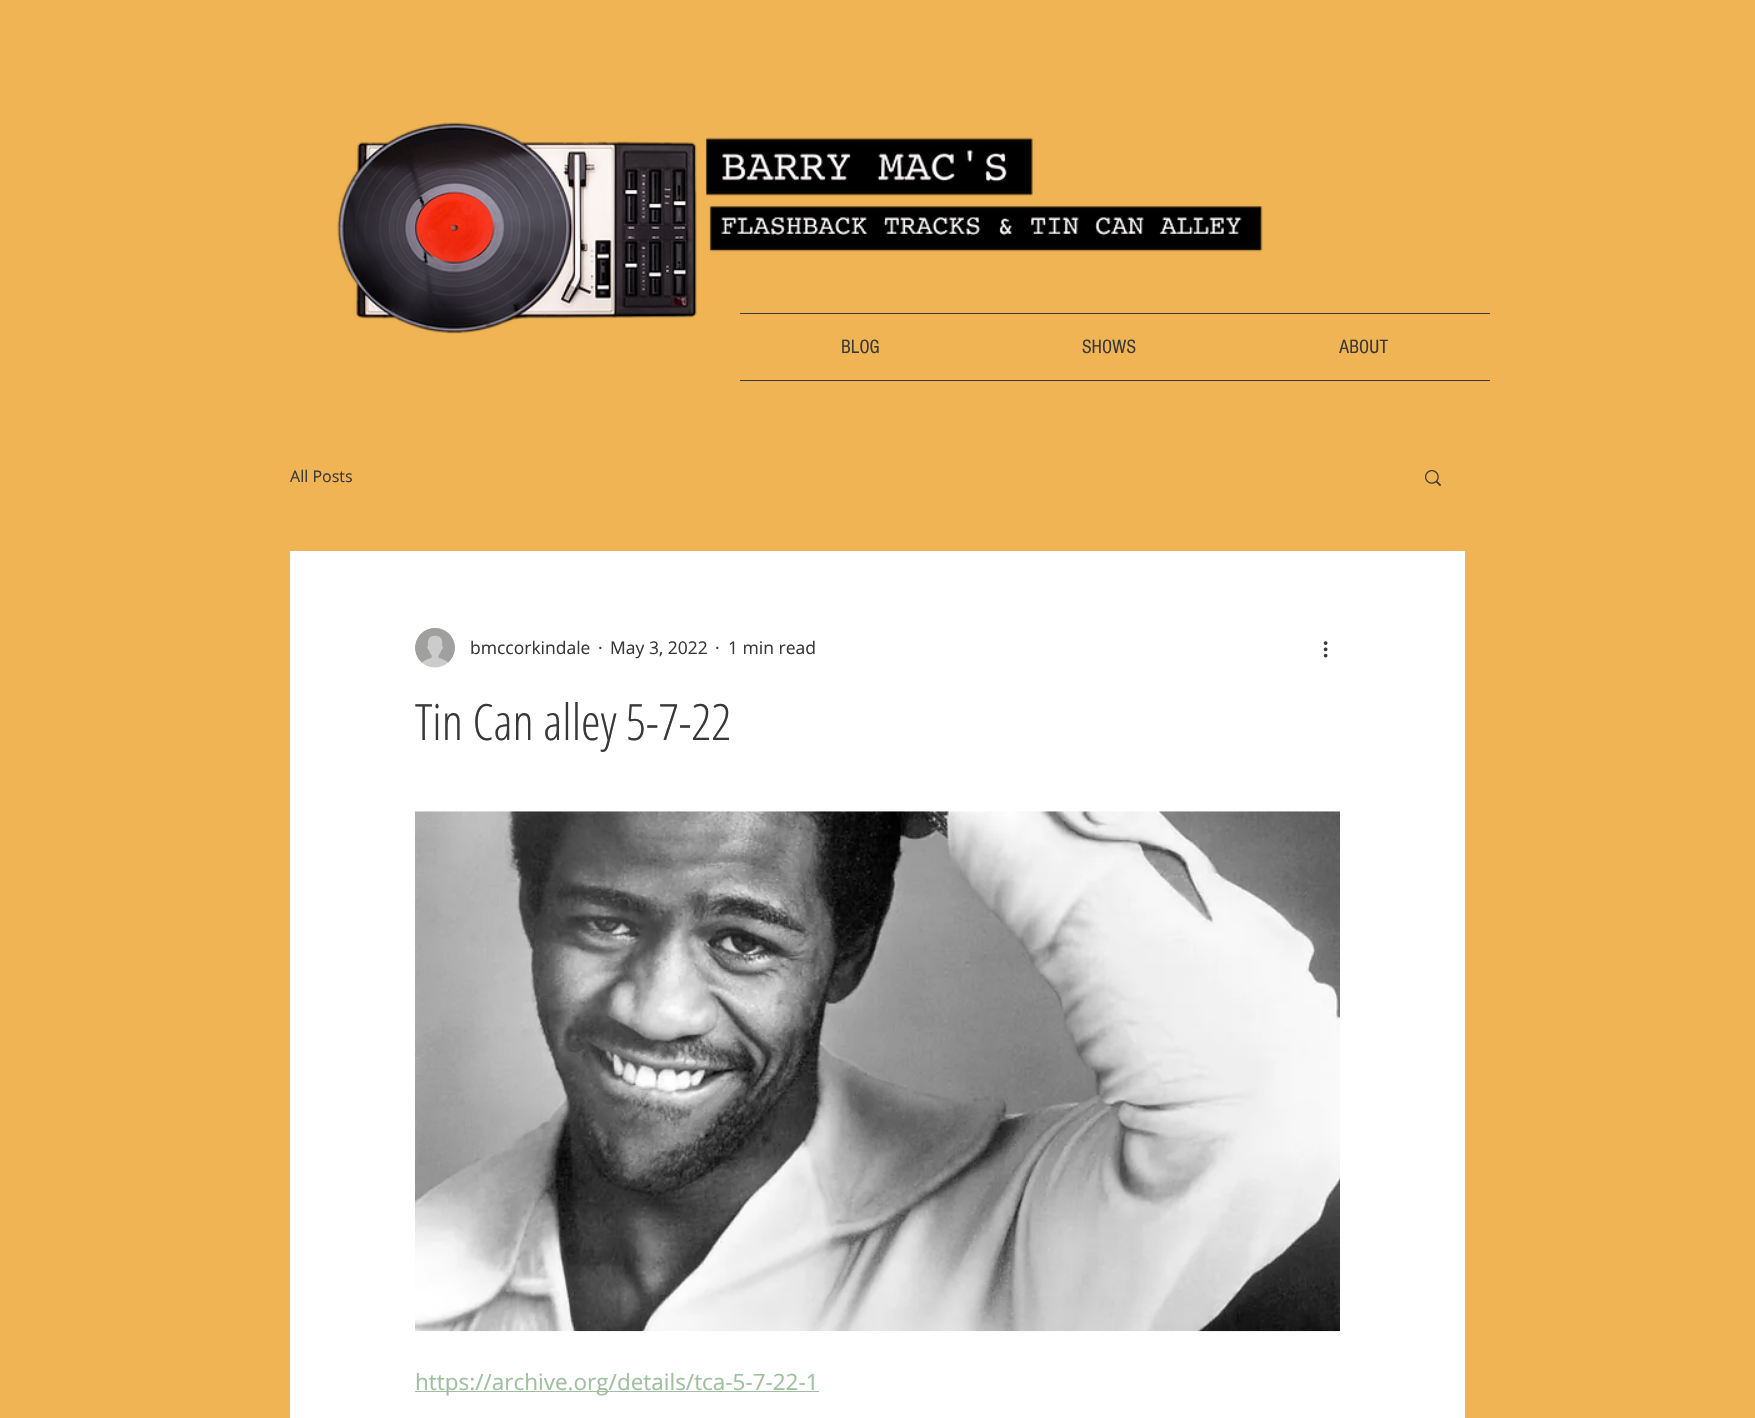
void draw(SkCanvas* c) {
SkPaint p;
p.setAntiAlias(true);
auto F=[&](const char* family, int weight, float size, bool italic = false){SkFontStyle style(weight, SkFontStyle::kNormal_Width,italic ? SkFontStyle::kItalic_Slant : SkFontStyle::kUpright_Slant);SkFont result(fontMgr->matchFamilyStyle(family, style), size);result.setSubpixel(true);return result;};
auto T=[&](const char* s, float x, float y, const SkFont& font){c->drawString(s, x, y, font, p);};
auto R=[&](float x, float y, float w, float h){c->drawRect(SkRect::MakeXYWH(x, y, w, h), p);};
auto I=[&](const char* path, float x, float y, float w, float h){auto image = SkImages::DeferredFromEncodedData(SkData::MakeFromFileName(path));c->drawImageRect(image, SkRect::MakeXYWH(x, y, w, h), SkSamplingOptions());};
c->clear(0xfff0b454);
I("1.png",337,122,926,212);
p.setColor(0xff383838);
R(740,313,750,1);
R(740,380,750,1);
auto f1 = F("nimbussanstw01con",400,20);
T("BLOG",841,353,f1);
T("SHOWS",1082,353,f1);
T("ABOUT",1339,353,f1);
auto f2 = F("Open Sans",400,16);
T("All Posts",290,482,f2);
I("2.png",1425,470,16,16);
p.setColor(0xffffffff);
R(290,551,1175,867);
I("3.png",415,628,40,40);
auto f3 = F("Open Sans",400,17.5);
p.setColor(0xff383838);
T("bmccorkindale",470,654,f3);
T("·",598,654,f3);
T("May 3, 2022",610,654,f3);
T("·",715,654,f3);
T("1 min read",728,654,f3);
I("4.png",1323,641,5,17);
auto f4 = F("Open Sans Condensed",300,50);
T("Tin Can alley 5-7-22",415,740,f4);
I("5.png",415,811,925,521);
p.setColor(0xff9ec09f);
R(415,1391,404,1);
auto f5 = F("Open Sans",400,22.5);
T("https://archive.org/details/tca-5-7-22-1",415,1390,f5);
}
